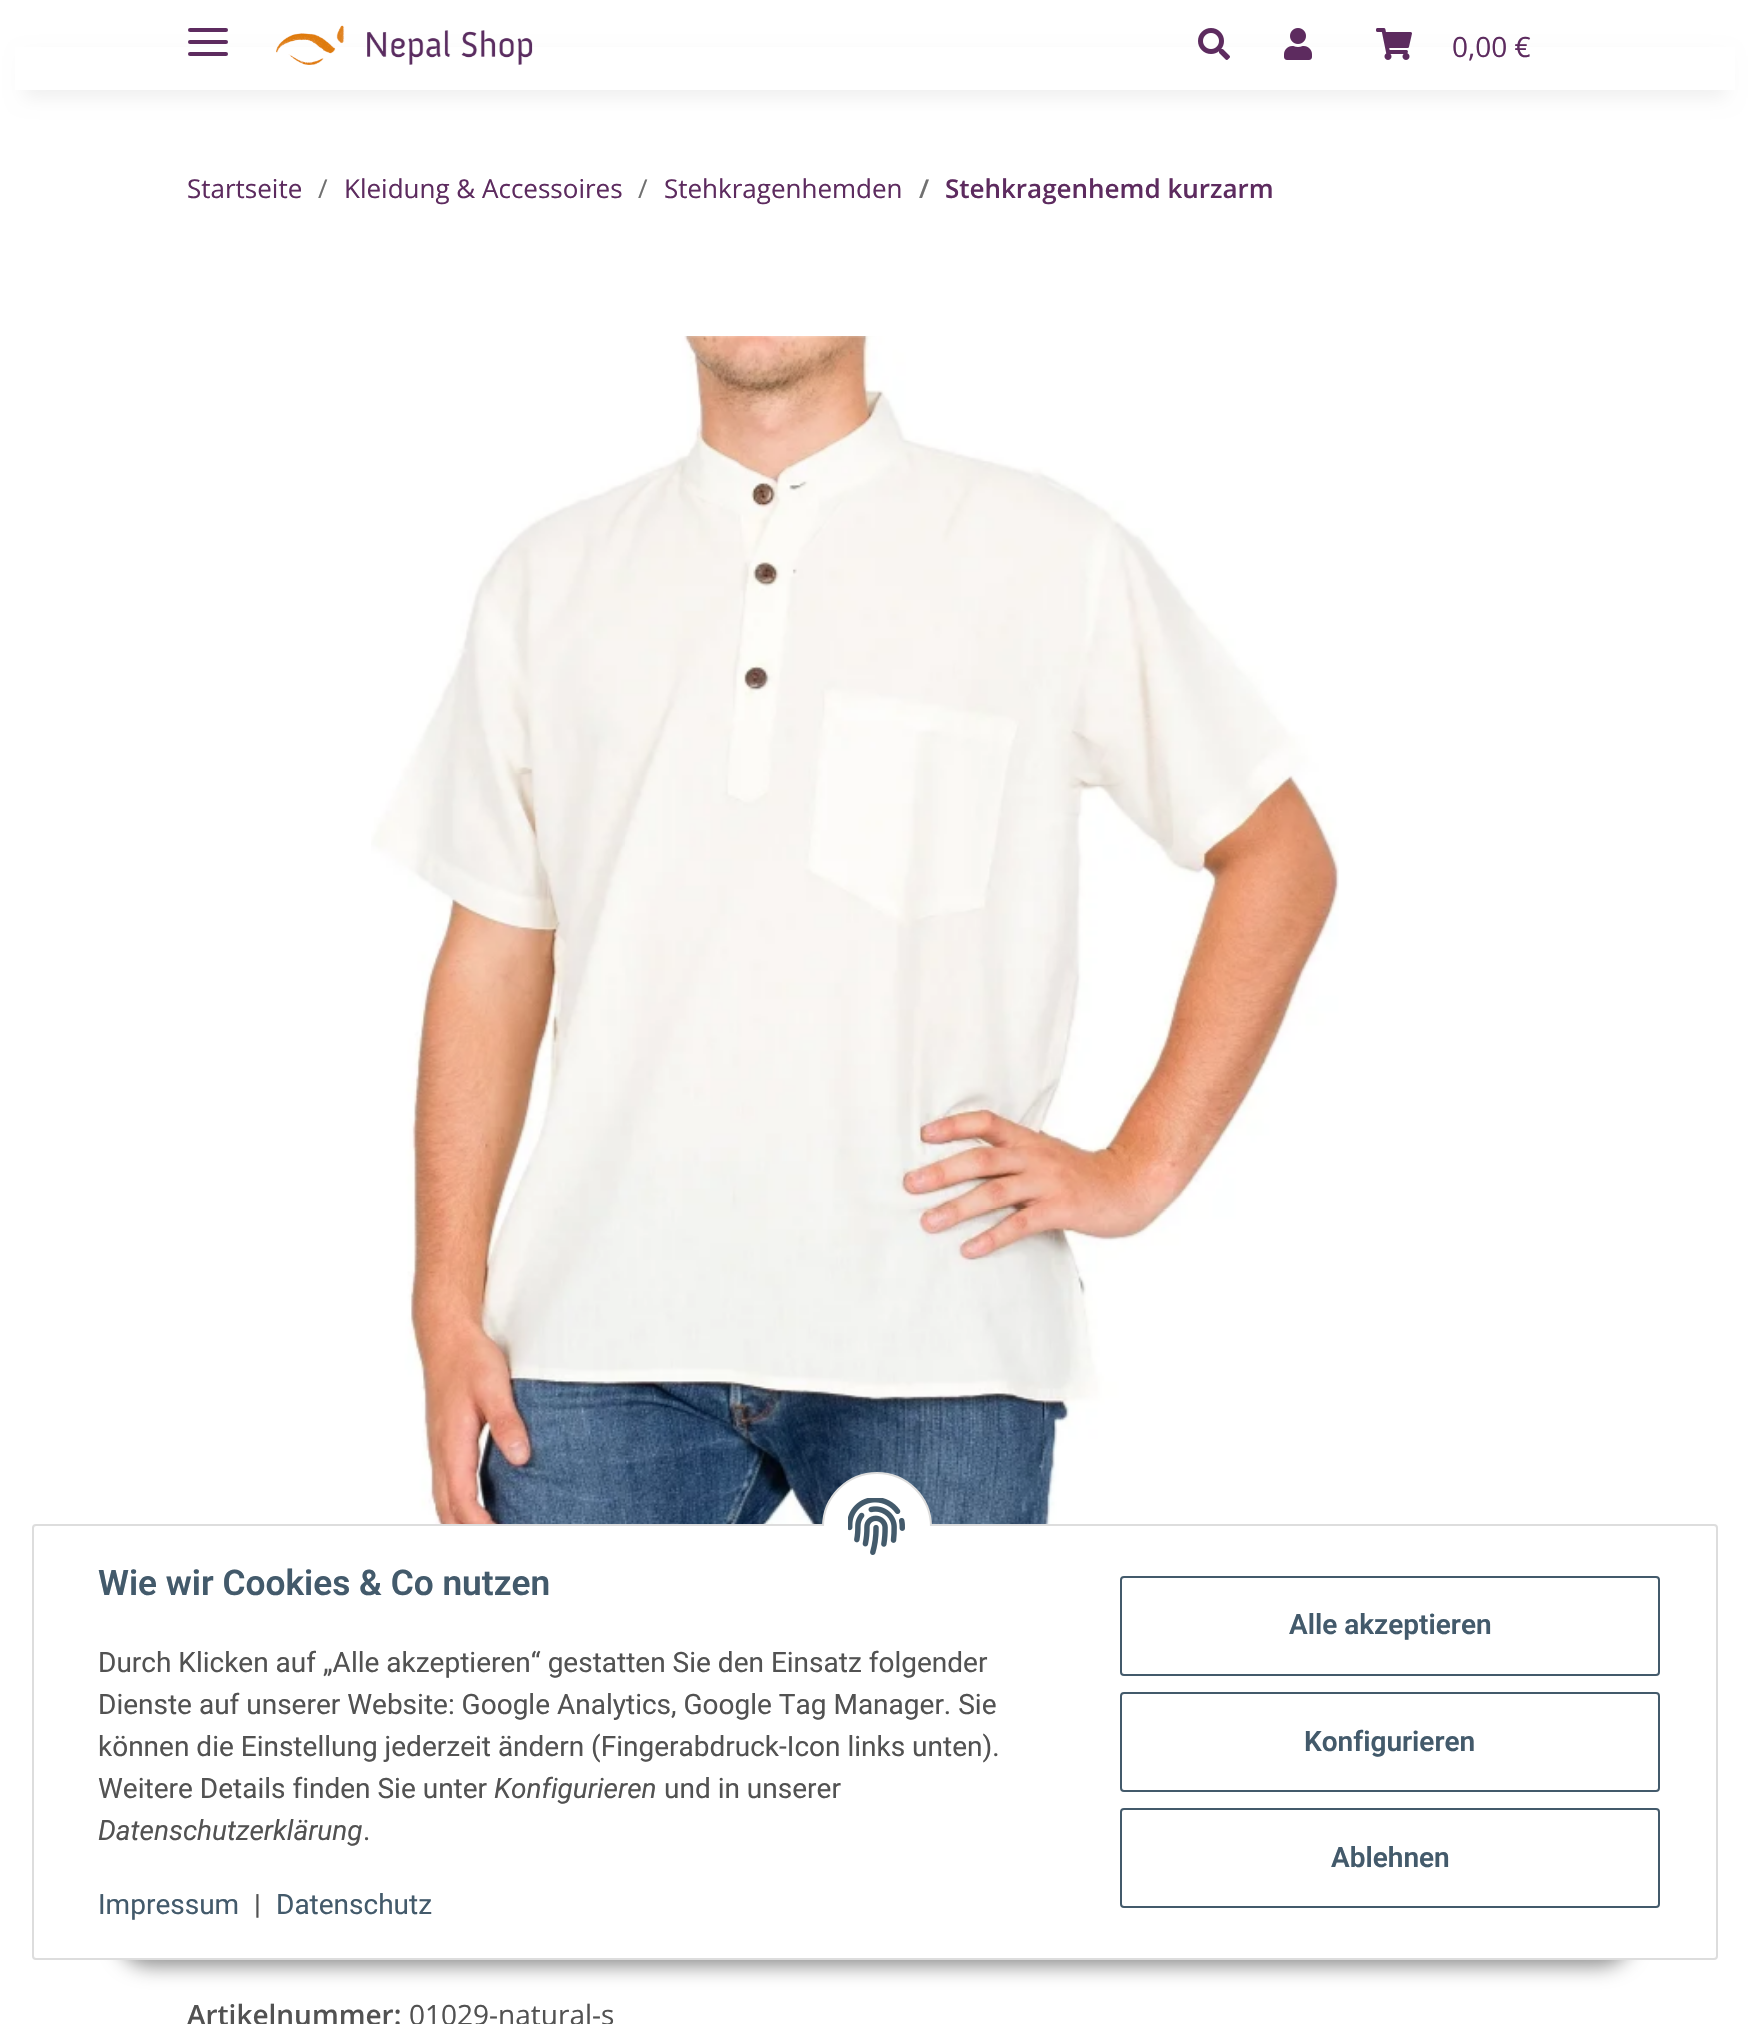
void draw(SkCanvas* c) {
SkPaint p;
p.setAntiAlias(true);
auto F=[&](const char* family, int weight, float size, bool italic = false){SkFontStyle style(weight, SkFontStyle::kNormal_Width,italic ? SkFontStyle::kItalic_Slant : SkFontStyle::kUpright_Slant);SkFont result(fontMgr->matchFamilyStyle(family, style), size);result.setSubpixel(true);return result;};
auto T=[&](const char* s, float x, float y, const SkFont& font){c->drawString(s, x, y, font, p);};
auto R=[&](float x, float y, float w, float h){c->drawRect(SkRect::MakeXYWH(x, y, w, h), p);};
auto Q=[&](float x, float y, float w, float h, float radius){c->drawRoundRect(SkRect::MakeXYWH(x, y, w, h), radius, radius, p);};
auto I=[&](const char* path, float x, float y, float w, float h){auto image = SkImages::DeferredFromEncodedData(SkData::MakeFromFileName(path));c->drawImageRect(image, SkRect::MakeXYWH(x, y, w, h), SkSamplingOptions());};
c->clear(0xffffffff);
p.setColor(0x0f000000);
p.setMaskFilter(SkMaskFilter::MakeBlur(kNormal_SkBlurStyle, 9));
c->drawRect(SkRect::MakeXYWH(24,56,1702,42),p);
p.setMaskFilter(nullptr);
p.setColor(0xffffffff);
R(15,47,1720,43);
p.setColor(0xff5d2b5f);
Q(188,40,40,4,2);
Q(188,28,40,4,2);
Q(188,52,40,4,2);
I("1.png",276,25,257,40);
I("2.png",1198,28,32,32);
I("3.png",1284,28,28,32);
I("4.png",1376,28,36,32);
auto f1 = F("Open Sans",400,28);
T("0,00 €",1452,57,f1);
auto f2 = F("Open Sans",400,26);
T("Startseite",187,198,f2);
p.setColor(0xff707070);
T("/",318,198,f2);
p.setColor(0xff5d2b5f);
T("Kleidung & Accessoires",344,198,f2);
p.setColor(0xff707070);
T("/",638,198,f2);
p.setColor(0xff5d2b5f);
T("Stehkragenhemden",664,198,f2);
auto f3 = F("Open Sans",600,26);
p.setColor(0xff707070);
T("/",919,198,f3);
p.setColor(0xff5d2b5f);
T("Stehkragenhemd kurzarm",945,198,f3);
I("5.png",371,336,968,1188);
auto f4 = F("Open Sans",600,28);
p.setColor(0xff525252);
T("Artikelnummer:",187,2025,f4);
T("01029-natural-s",409,2025,f1);
p.setColor(0x73000000);
p.setMaskFilter(SkMaskFilter::MakeBlur(kNormal_SkBlurStyle, 10));
c->drawRoundRect(SkRect::MakeXYWH(118,1902,1514,64),32,32,p);
p.setMaskFilter(nullptr);
p.setColor(0xffffffff);
c->drawRoundRect(SkRect::MakeXYWH(33,1525,1684,434),3,3,p);
p.setStroke(true);
p.setStrokeWidth(2);
p.setColor(0xffdddddd);
c->drawRoundRect(SkRect::MakeXYWH(33,1525,1684,434),3,3,p);
p.setStroke(false);
p.setColor(0xffffffff);
c->drawCircle(877,1527,54,p);
p.setStroke(true);
p.setColor(0xffdddddd);
c->drawCircle(877,1527,54,p);
p.setStroke(false);
p.setColor(0xffffffff);
R(822,1526,110,56);
I("6.png",848,1498,57,57);
auto f5 = F("Roboto",600,35.25);
p.setColor(0xff435a6b);
T("Wie wir Cookies & Co nutzen",98,1595,f5);
auto f6 = F("Roboto",400,28);
p.setColor(0xff525252);
T("Durch Klicken auf „Alle akzeptieren“ gestatten Sie den Einsatz folgender",98,1672,f6);
T("Dienste auf unserer Website: Google Analytics, Google Tag Manager. Sie",98,1714,f6);
T("können die Einstellung jederzeit ändern (Fingerabdruck-Icon links unten).",98,1756,f6);
T("Weitere Details finden Sie unter",98,1798,f6);
auto f7 = F("Roboto",400,28,true);
T("Konfigurieren",494,1798,f7);
T("und in unserer",664,1798,f6);
T("Datenschutzerklärung",98,1840,f7);
T(".",363,1840,f6);
p.setColor(0xff435a6b);
T("Impressum",98,1914,f6);
p.setColor(0xff525252);
T("|",254,1914,f6);
p.setColor(0xff435a6b);
T("Datenschutz",276,1914,f6);
p.setStroke(true);
c->drawRoundRect(SkRect::MakeXYWH(1121,1577,538,98),3,3,p);
auto f8 = F("Roboto",600,28);
p.setStroke(false);
T("Alle akzeptieren",1289,1634,f8);
p.setStroke(true);
c->drawRoundRect(SkRect::MakeXYWH(1121,1693,538,98),3,3,p);
p.setStroke(false);
T("Konfigurieren",1304,1751,f8);
p.setStroke(true);
c->drawRoundRect(SkRect::MakeXYWH(1121,1809,538,98),3,3,p);
p.setStroke(false);
T("Ablehnen",1331,1867,f8);
}
